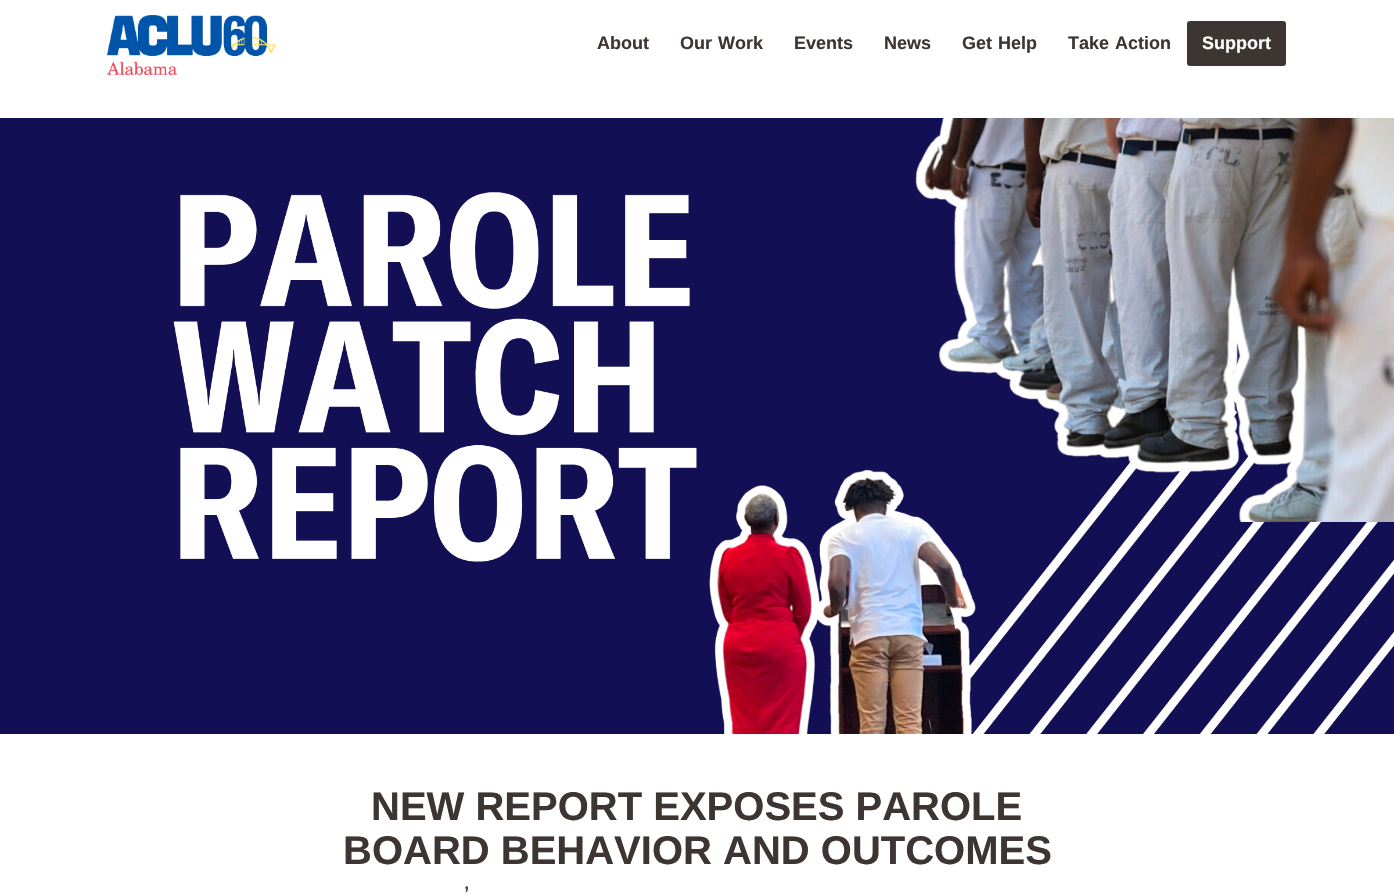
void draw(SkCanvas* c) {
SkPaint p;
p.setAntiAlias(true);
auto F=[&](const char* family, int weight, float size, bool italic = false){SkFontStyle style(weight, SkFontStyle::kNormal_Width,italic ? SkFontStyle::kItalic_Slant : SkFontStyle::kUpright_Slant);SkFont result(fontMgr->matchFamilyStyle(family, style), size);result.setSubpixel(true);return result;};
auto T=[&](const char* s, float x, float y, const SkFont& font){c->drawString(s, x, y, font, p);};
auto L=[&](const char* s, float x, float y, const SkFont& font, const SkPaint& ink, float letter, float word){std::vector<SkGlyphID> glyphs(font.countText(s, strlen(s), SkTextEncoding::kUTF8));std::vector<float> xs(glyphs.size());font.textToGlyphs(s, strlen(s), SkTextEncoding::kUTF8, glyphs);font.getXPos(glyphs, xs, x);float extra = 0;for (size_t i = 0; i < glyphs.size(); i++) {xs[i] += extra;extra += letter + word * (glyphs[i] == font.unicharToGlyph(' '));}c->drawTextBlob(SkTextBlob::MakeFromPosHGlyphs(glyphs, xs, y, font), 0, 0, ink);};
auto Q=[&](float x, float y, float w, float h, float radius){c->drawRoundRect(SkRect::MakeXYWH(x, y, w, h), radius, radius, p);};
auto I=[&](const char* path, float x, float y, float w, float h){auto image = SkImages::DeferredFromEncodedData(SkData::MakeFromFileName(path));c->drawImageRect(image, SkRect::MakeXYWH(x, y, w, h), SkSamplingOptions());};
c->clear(0xffffffff);
I("1.png",107,15,169,60);
auto f1 = F("Liberation Sans",700,18);
p.setColor(0xff3c3532);
T("About",597,49,f1);
L("Our Work",680,49,f1,p,0,1);
T("Events",794,49,f1);
T("News",884,49,f1);
L("Get Help",962,49,f1,p,0,1);
L("Take Action",1068,49,f1,p,0,1);
Q(1187,21,99,45,3);
p.setColor(0xffffffff);
T("Support",1202,49,f1);
I("2.png",0,118,1394,616);
auto f2 = F("Liberation Sans",700,40);
p.setColor(0xff3c3532);
T("NEW REPORT EXPOSES PAROLE",371,820,f2);
T("BOARD BEHAVIOR AND OUTCOMES",343,864,f2);
auto f3 = F("Liberation Sans",400,24);
T("’",464,903,f3);
}
